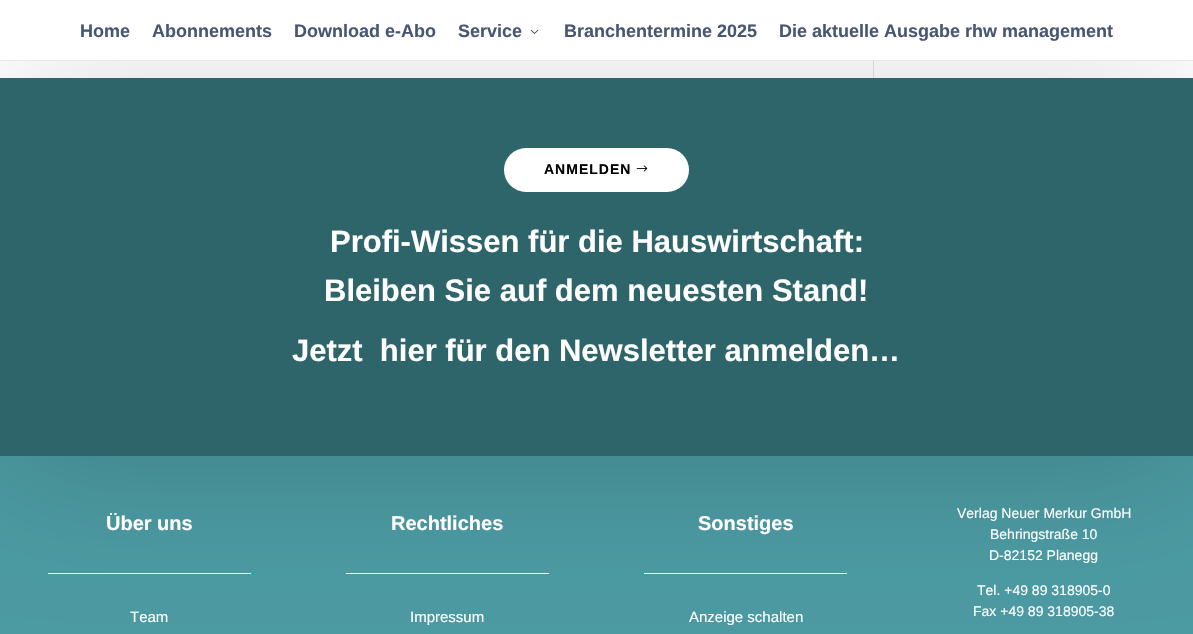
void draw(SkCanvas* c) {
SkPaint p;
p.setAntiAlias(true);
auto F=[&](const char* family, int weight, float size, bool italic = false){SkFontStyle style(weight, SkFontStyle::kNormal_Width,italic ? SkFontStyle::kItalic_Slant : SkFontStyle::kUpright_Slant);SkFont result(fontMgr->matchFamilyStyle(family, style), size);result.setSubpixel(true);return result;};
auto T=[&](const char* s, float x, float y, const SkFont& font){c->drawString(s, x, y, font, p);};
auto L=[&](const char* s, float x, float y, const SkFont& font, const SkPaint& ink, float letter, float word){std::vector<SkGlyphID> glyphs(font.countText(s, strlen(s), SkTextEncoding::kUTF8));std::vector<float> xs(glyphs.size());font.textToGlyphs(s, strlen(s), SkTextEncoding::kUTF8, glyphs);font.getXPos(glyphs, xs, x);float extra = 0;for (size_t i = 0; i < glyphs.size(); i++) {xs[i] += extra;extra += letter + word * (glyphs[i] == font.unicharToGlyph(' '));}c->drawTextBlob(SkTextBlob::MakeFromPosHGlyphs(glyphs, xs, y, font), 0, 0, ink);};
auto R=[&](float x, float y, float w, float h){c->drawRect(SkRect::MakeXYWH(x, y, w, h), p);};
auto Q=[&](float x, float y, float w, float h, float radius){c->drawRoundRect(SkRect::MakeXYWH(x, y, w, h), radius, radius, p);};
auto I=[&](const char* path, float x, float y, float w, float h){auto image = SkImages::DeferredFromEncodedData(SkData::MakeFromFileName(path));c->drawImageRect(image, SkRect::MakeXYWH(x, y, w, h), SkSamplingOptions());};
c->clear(0xffffffff);
p.setColor(0xffe2e2e2);
R(873,61,1,17);
p.setColor(0xff4c9aa2);
R(0,456,1193,178);
p.setColor(0xffffffff);
R(48,573,203,1);
R(346,573,203,1);
R(644,573,203,1);
p.setColor(0x2e000000);
p.setMaskFilter(SkMaskFilter::MakeBlur(kNormal_SkBlurStyle, 67.5));
c->drawRect(SkRect::MakeXYWH(6,96,1181,366),p);
p.setMaskFilter(nullptr);
p.setColor(0xffffffff);
R(0,0,1193,60);
p.setColor(0xffe7e9ed);
R(0,60,1193,1);
auto f1 = F("Liberation Sans",700,18);
p.setColor(0xff475773);
T("Home",80,37,f1);
T("Abonnements",152,37,f1);
T("Download e-Abo",294,37,f1);
T("Service",458,37,f1);
I("1.png",530,29,9,5);
T("Branchentermine 2025",564,37,f1);
T("Die aktuelle Ausgabe rhw management",779,37,f1);
p.setColor(0xff2d656b);
R(0,78,1193,378);
p.setColor(0xffffffff);
Q(504,148,185,44,22);
auto f2 = F("Liberation Sans",700,14);
p.setColor(0xff000000);
L("ANMELDEN",544,174,f2,p,1,0);
I("2.png",636,165,12,7);
auto f3 = F("Liberation Sans",700,31);
p.setColor(0xffffffff);
T("Profi-Wissen für die Hauswirtschaft:",330,252,f3);
T("Bleiben Sie auf dem neuesten Stand!",324,301,f3);
T("Jetzt  hier für den Newsletter anmelden…",292,361,f3);
auto f4 = F("Liberation Sans",700,20);
T("Über uns",106,530,f4);
auto f5 = F("Liberation Sans",400,15);
T("Team",130,622,f5);
T("Rechtliches",391,530,f4);
T("Impressum",410,622,f5);
T("Sonstiges",698,530,f4);
T("Anzeige schalten",689,622,f5);
auto f6 = F("Liberation Sans",400,14);
T("Verlag Neuer Merkur GmbH",957,518,f6);
T("Behringstraße 10",990,539,f6);
T("D-82152 Planegg",989,560,f6);
T("Tel. +49 89 318905-0",977,595,f6);
T("Fax +49 89 318905-38",973,616,f6);
}
